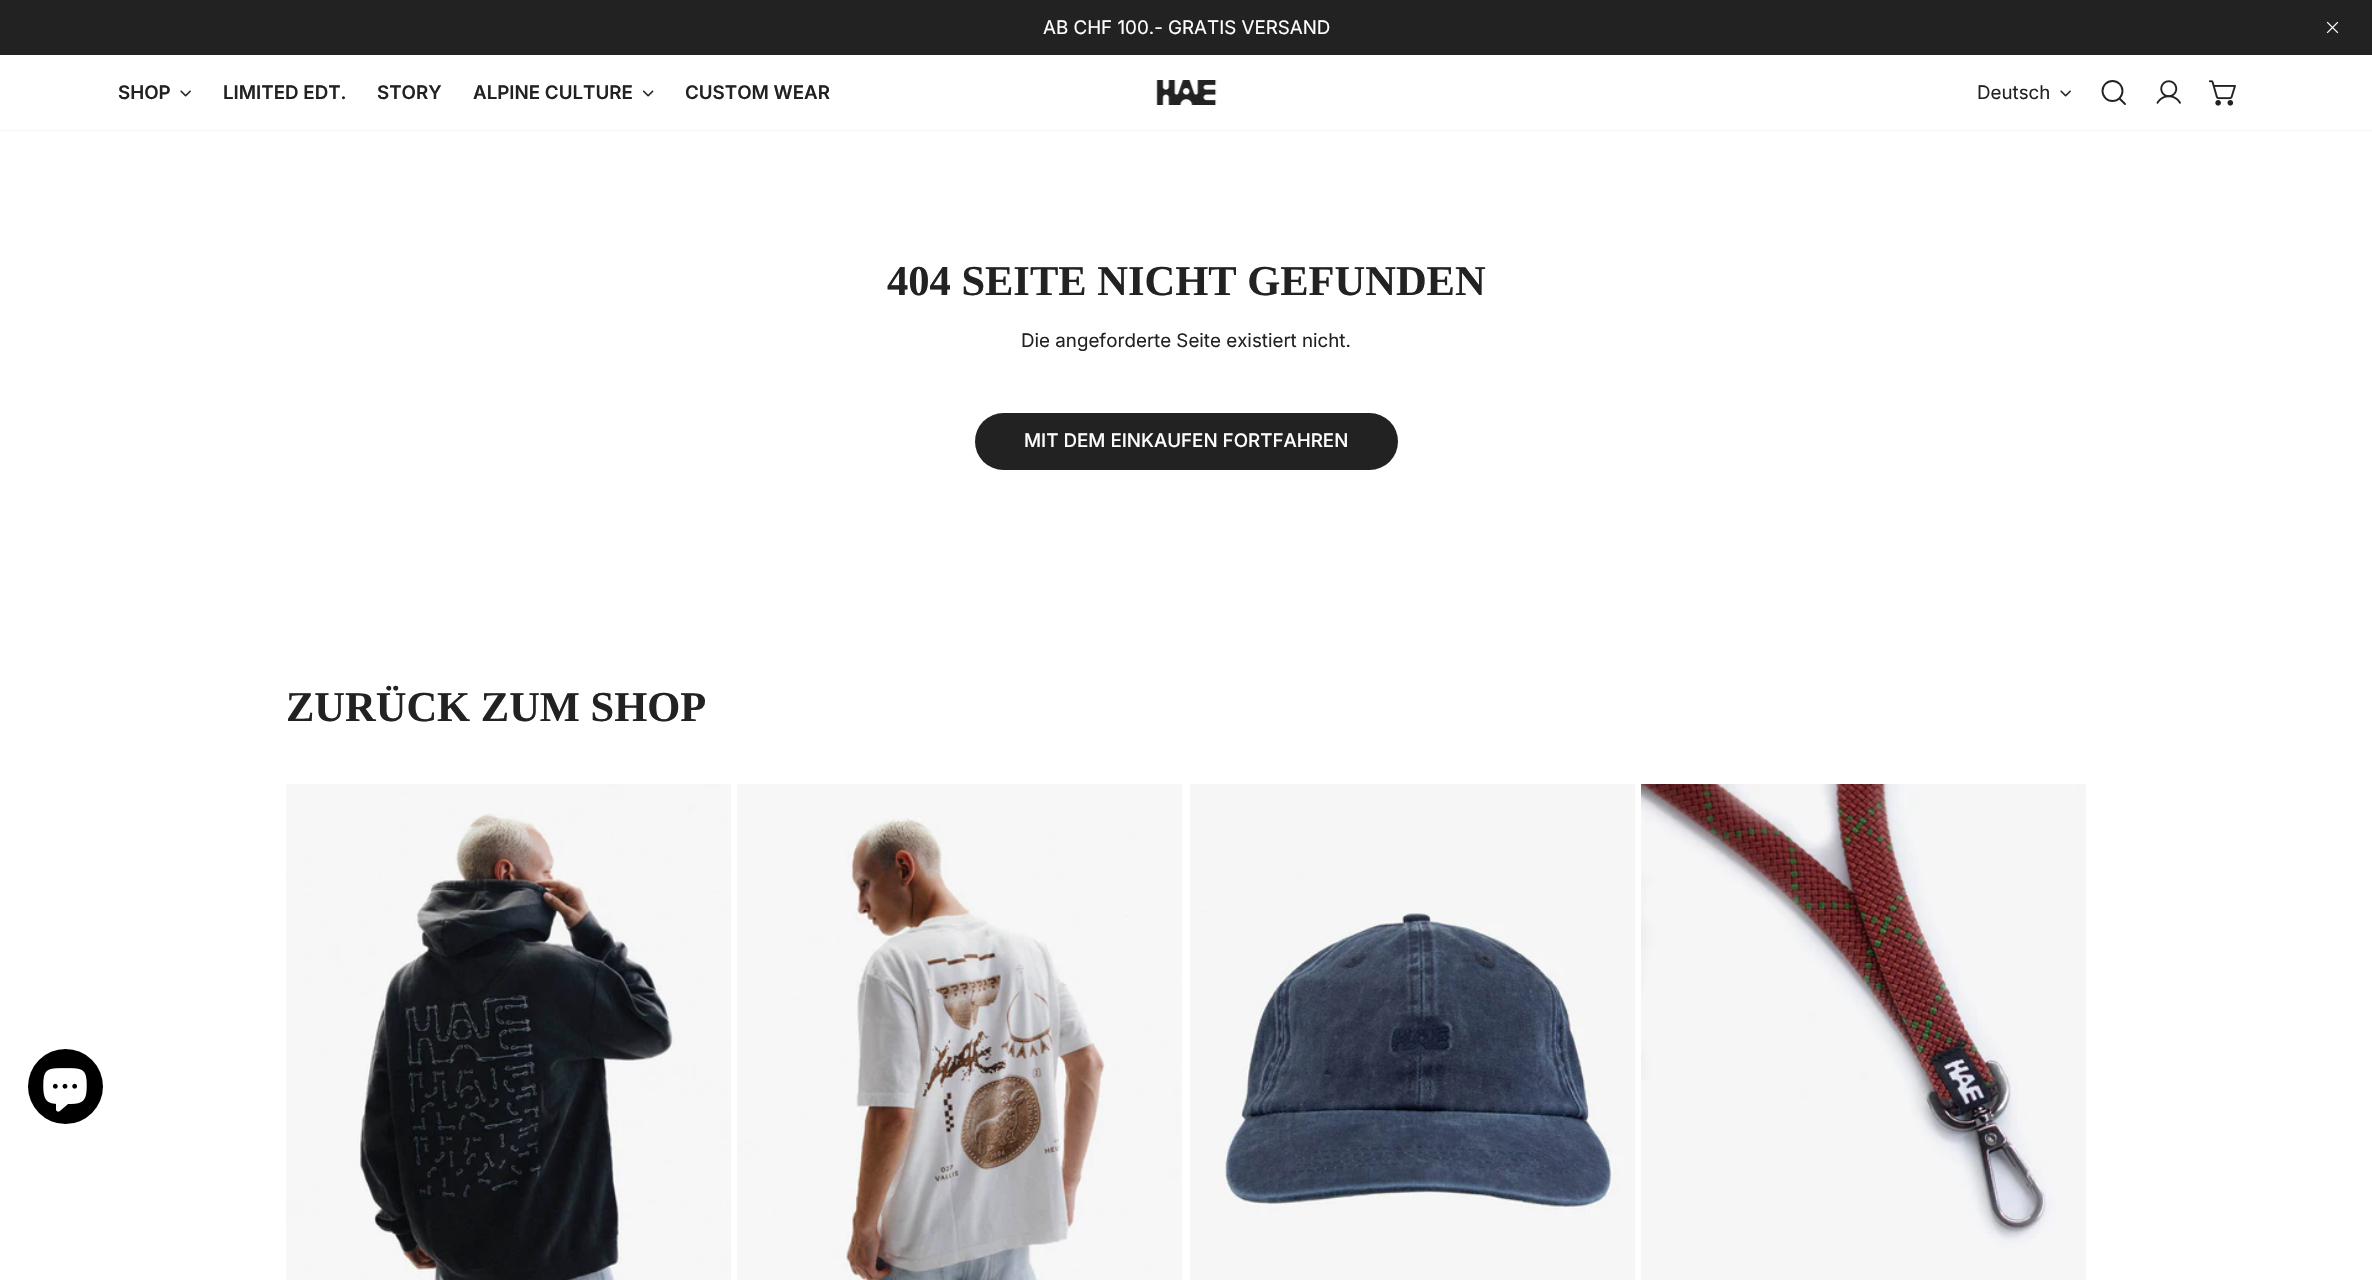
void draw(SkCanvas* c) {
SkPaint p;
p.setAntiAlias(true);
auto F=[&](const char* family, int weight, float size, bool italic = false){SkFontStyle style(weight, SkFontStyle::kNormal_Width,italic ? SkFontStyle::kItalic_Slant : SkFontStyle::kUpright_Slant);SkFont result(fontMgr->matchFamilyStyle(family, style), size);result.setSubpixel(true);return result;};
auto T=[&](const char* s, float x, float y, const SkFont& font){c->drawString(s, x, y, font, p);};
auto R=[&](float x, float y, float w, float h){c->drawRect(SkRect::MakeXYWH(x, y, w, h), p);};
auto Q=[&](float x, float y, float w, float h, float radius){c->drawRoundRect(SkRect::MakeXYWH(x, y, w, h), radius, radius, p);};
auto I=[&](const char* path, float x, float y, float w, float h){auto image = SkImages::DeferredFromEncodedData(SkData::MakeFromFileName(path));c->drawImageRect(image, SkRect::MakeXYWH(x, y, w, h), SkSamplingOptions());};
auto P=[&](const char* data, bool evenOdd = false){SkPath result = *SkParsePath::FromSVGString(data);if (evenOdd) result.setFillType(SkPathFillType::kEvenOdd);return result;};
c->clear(0xffffffff);
p.setColor(0xff222222);
R(0,0,2372,55);
auto f1 = F("Inter",400,18.75);
p.setColor(0xffffffff);
T("AB CHF 100.- GRATIS VERSAND",1043,34,f1);
I("1.png",2326,21,13,13);
p.setColor(0xfff6f6f6);
R(0,130,2372,1);
auto f2 = F("Inter",600,18.75);
p.setColor(0xff222222);
T("SHOP",118,99,f2);
I("2.png",180,90,11,7);
T("LIMITED EDT.",223,99,f2);
T("STORY",377,99,f2);
T("ALPINE CULTURE",473,99,f2);
I("3.png",643,90,11,7);
T("CUSTOM WEAR",685,99,f2);
I("4.png",1156,80,61,25);
T("Deutsch",1977,99,f1);
I("2.png",2060,90,11,7);
p.setStroke(true);
p.setStrokeWidth(1.9);
c->drawCircle(2112.5,91,10,p);
p.setStrokeCap(SkPaint::kRound_Cap);
p.setStrokeJoin(SkPaint::kRound_Join);
c->drawPath(P("M2125 104l-5.5-5.5"),p);
I("5.png",2156,80,25,24);
I("6.png",2209,80,27,26);
auto f3 = F("Liberation Serif",700,42.5);
p.setStroke(false);
T("404 SEITE NICHT GEFUNDEN",887,295,f3);
T("Die angeforderte Seite existiert nicht.",1021,347,f1);
Q(975,413,423,57,28.5);
auto f4 = F("Inter",500,18.75);
p.setColor(0xffffffff);
T("MIT DEM EINKAUFEN FORTFAHREN",1024,447,f4);
p.setColor(0xff222222);
T("ZURÜCK ZUM SHOP",286,721,f3);
I("7.png",286,784,445,496);
I("8.png",737,784,445,496);
I("9.png",1190,784,445,496);
I("10.png",1641,784,445,496);
p.setColor(0xff000000);
c->drawCircle(65.5,1086.5,37.5,p);
I("11.png",43,1068,44,44);
}
